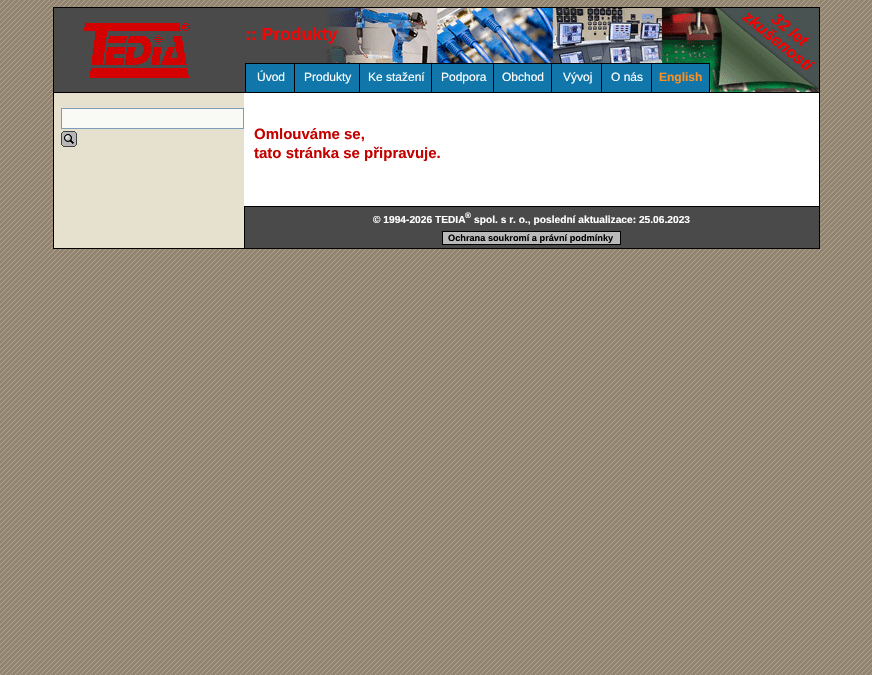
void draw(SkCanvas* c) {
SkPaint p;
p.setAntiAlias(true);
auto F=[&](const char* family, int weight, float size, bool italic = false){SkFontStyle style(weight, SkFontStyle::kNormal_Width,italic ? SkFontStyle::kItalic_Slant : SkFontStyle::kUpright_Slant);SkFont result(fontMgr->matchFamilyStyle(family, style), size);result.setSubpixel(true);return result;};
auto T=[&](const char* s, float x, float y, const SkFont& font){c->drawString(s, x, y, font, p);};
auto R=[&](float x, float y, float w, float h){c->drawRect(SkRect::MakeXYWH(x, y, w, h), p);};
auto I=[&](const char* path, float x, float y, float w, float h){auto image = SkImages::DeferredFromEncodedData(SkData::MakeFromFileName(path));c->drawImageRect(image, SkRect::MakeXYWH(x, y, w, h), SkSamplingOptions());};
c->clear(0xffffffff);
I("1.png",0,0,872,675);
p.setColor(0xffffffff);
R(244,93,575,113);
p.setColor(0xffe6e1cf);
R(54,93,190,155);
p.setStroke(true);
p.setStrokeWidth(1);
p.setColor(0xff000000);
c->drawRect(SkRect::MakeXYWH(53.5,7.5,766,241),p);
p.setStroke(false);
p.setColor(0xff4a4a4a);
R(54,8,272,84);
I("2.png",326,8,493,84);
p.setColor(0xff000000);
R(54,92,765,1);
I("3.png",84,23,106,55);
auto f1 = F("Liberation Sans",700,17.5);
p.setColor(0xfff30605);
T(":: Produkty",245,40,f1);
p.setColor(0xfff9f9f5);
c->drawRect(SkRect::MakeXYWH(61.5,108.5,182,20),p);
p.setStroke(true);
p.setColor(0xff7e9db9);
c->drawRect(SkRect::MakeXYWH(61.5,108.5,182,20),p);
I("4.png",61,131,16,16);
auto f2 = F("Liberation Sans",700,15);
p.setStroke(false);
p.setColor(0xffc30200);
T("Omlouváme se,",254,139,f2);
T("tato stránka se připravuje.",254,158,f2);
p.setColor(0xff4a4a4a);
R(245,207,574,41);
p.setColor(0xff000000);
R(244,206,575,1);
R(244,206,1,42);
auto f3 = F("Liberation Sans",700,10.2);
p.setColor(0xffffffff);
T("© 1994-2026 TEDIA",373,223,f3);
auto f4 = F("Liberation Sans",700,8);
T("®",465,218,f4);
T("spol. s r. o., poslední aktualizace: 25.06.2023",474,223,f3);
p.setColor(0xffbababa);
c->drawRect(SkRect::MakeXYWH(442.5,231.5,178,13),p);
p.setStroke(true);
p.setColor(0xff000000);
c->drawRect(SkRect::MakeXYWH(442.5,231.5,178,13),p);
auto f5 = F("Liberation Sans",700,9.2);
p.setStroke(false);
T("Ochrana soukromí a právní podmínky",448,241,f5);
p.setColor(0xff1177aa);
R(246,64,48,28);
p.setStroke(true);
p.setColor(0xff000000);
c->drawRect(SkRect::MakeXYWH(245.5,63.5,51,29),p);
auto f6 = F("Liberation Sans",400,12);
p.setStroke(false);
p.setColor(0xffffffff);
T("Úvod",257,81,f6);
p.setColor(0xff1177aa);
R(295,64,64,28);
p.setStroke(true);
p.setColor(0xff000000);
c->drawRect(SkRect::MakeXYWH(294.5,63.5,67,29),p);
p.setStroke(false);
p.setColor(0xffffffff);
T("Produkty",304,81,f6);
p.setColor(0xff1177aa);
R(360,64,71,28);
p.setStroke(true);
p.setColor(0xff000000);
c->drawRect(SkRect::MakeXYWH(359.5,63.5,74,29),p);
p.setStroke(false);
p.setColor(0xffffffff);
T("Ke stažení",368,81,f6);
p.setColor(0xff1177aa);
R(432,64,61,28);
p.setStroke(true);
p.setColor(0xff000000);
c->drawRect(SkRect::MakeXYWH(431.5,63.5,64,29),p);
p.setStroke(false);
p.setColor(0xffffffff);
T("Podpora",441,81,f6);
p.setColor(0xff1177aa);
R(494,64,57,28);
p.setStroke(true);
p.setColor(0xff000000);
c->drawRect(SkRect::MakeXYWH(493.5,63.5,60,29),p);
p.setStroke(false);
p.setColor(0xffffffff);
T("Obchod",502,81,f6);
p.setColor(0xff1177aa);
R(552,64,49,28);
p.setStroke(true);
p.setColor(0xff000000);
c->drawRect(SkRect::MakeXYWH(551.5,63.5,52,29),p);
p.setStroke(false);
p.setColor(0xffffffff);
T("Vývoj",563,81,f6);
p.setColor(0xff1177aa);
R(602,64,49,28);
p.setStroke(true);
p.setColor(0xff000000);
c->drawRect(SkRect::MakeXYWH(601.5,63.5,52,29),p);
p.setStroke(false);
p.setColor(0xffffffff);
T("O nás",611,81,f6);
p.setColor(0xff1177aa);
c->drawRect(SkRect::MakeXYWH(651.5,63.5,58,29),p);
p.setStroke(true);
p.setColor(0xff000000);
c->drawRect(SkRect::MakeXYWH(651.5,63.5,58,29),p);
auto f7 = F("Liberation Sans",700,12);
p.setStroke(false);
p.setColor(0xffff9020);
T("English",659,81,f7);
}
